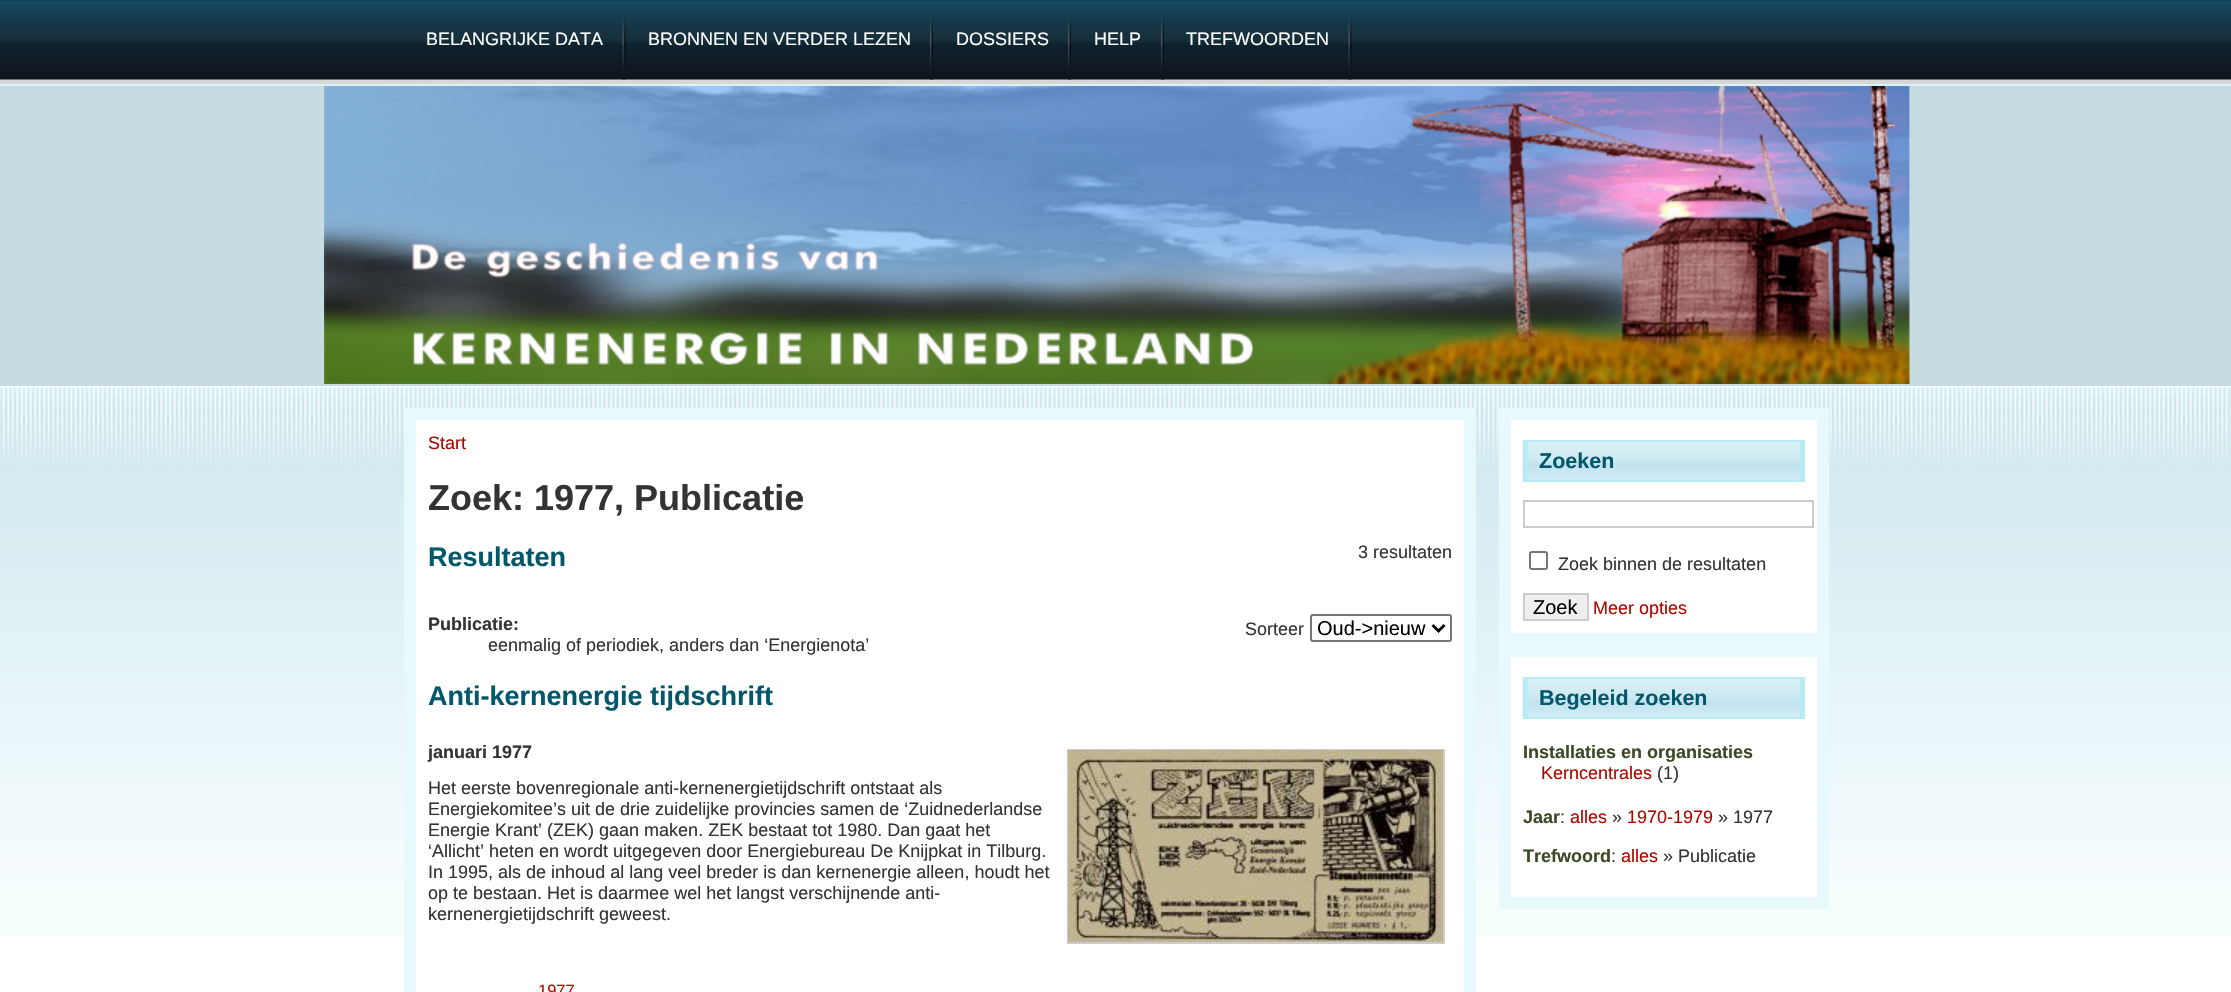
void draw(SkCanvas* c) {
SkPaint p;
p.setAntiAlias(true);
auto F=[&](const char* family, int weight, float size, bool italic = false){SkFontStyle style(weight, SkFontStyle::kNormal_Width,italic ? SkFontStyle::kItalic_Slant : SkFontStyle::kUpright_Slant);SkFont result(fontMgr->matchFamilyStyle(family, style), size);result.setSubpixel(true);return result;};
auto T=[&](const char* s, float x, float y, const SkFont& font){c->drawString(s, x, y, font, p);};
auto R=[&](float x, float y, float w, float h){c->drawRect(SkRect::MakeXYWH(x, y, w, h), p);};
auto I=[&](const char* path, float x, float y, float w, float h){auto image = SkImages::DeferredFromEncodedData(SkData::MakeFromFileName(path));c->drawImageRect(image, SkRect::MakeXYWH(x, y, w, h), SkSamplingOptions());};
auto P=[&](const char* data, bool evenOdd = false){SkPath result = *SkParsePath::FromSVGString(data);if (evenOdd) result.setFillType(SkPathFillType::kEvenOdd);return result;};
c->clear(0xffffffff);
I("1.png",0,386,2231,550);
I("2.png",0,0,2231,84);
I("3.png",622,17,4,63);
auto f1 = F("Liberation Sans",400,18);
p.setColor(0xffffffff);
T("BELANGRIJKE DATA",426,45,f1);
I("4.png",930,16,3,64);
T("BRONNEN EN VERDER LEZEN",648,45,f1);
I("5.png",1068,16,3,64);
T("DOSSIERS",956,45,f1);
I("5.png",1161,16,3,64);
T("HELP",1094,45,f1);
I("3.png",1348,17,4,63);
T("TREFWOORDEN",1186,45,f1);
p.setColor(0xffc7dce1);
R(0,86,2231,300);
I("6.png",324,86,1586,298);
p.setColor(0xffd9f3f9);
R(0,84,2231,2);
p.setColor(0xffffffff);
R(416,420,1048,516);
p.setStroke(true);
p.setStrokeWidth(12);
p.setColor(0xffe7f9fb);
c->drawRect(SkRect::MakeXYWH(410,414,1060,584),p);
p.setStroke(false);
p.setColor(0xffab0900);
T("Start",428,449,f1);
auto f2 = F("Liberation Sans",700,36);
p.setColor(0xff333333);
T("Zoek: 1977, Publicatie",428,510,f2);
T("3 resultaten",1358,558,f1);
auto f3 = F("Liberation Sans",700,27);
p.setColor(0xff02576b);
T("Resultaten",428,566,f3);
auto f4 = F("Liberation Sans",700,18);
p.setColor(0xff333333);
T("Publicatie:",428,630,f4);
T("eenmalig of periodiek, anders dan ‘Energienota’",488,651,f1);
T("Sorteer",1245,635,f1);
p.setStroke(true);
p.setStrokeWidth(2);
p.setColor(0xff767676);
c->drawRoundRect(SkRect::MakeXYWH(1311,615,140,26),2,2,p);
p.setStrokeWidth(3);
p.setColor(0xff000000);
c->drawPath(P("M1432.5 625l6 6l6-6"),p);
auto f5 = F("Liberation Sans",400,20);
p.setStroke(false);
T("Oud->nieuw",1317,635,f5);
p.setColor(0xff02576b);
T("Anti-kernenergie tijdschrift",428,705,f3);
p.setColor(0xff333333);
T("januari 1977",428,758,f4);
p.setStroke(true);
p.setStrokeWidth(2);
p.setColor(0xffcccccc);
c->drawRect(SkRect::MakeXYWH(1068,750,376,193),p);
I("7.png",1068,750,375,192);
p.setStroke(false);
p.setColor(0xff333333);
T("Het eerste bovenregionale anti-kernenergietijdschrift ontstaat als",428,794,f1);
T("Energiekomitee’s uit de drie zuidelijke provincies samen de ‘Zuidnederlandse",428,815,f1);
T("Energie Krant’ (ZEK) gaan maken. ZEK bestaat tot 1980. Dan gaat het",428,836,f1);
T("‘Allicht’ heten en wordt uitgegeven door Energiebureau De Knijpkat in Tilburg.",428,857,f1);
T("In 1995, als de inhoud al lang veel breder is dan kernenergie alleen, houdt het",428,878,f1);
T("op te bestaan. Het is daarmee wel het langst verschijnende anti-",428,899,f1);
T("kernenergietijdschrift geweest.",428,920,f1);
auto f6 = F("Liberation Sans",400,16.5);
p.setColor(0xffab0900);
T("1977",538,996,f6);
p.setColor(0xffffffff);
c->drawRect(SkRect::MakeXYWH(1505,414,318,225),p);
p.setStroke(true);
p.setStrokeWidth(12);
p.setColor(0xffe7f9fb);
c->drawRect(SkRect::MakeXYWH(1505,414,318,225),p);
I("8.png",1522,441,278,41);
p.setStroke(false);
p.setColor(0xffb7ecf5);
R(1523,440,282,2);
R(1800,440,5,42);
R(1523,480,282,2);
R(1523,440,5,42);
auto f7 = F("Liberation Sans",700,21.5);
p.setColor(0xff02576b);
T("Zoeken",1539,468,f7);
p.setStroke(true);
p.setStrokeWidth(2);
p.setColor(0xffcccccc);
c->drawRect(SkRect::MakeXYWH(1524,501,289,26),p);
p.setColor(0xff767676);
c->drawRoundRect(SkRect::MakeXYWH(1530,552,17,17),2,2,p);
p.setStroke(false);
p.setColor(0xff333333);
T("Zoek binnen de resultaten",1558,570,f1);
p.setColor(0xffefefef);
c->drawRect(SkRect::MakeXYWH(1524,594,64,26),p);
p.setStroke(true);
p.setColor(0xffcccccc);
c->drawRect(SkRect::MakeXYWH(1524,594,64,26),p);
p.setStroke(false);
p.setColor(0xff000000);
T("Zoek",1533,614,f5);
p.setColor(0xffab0900);
T("Meer opties",1593,614,f1);
p.setColor(0xffffffff);
c->drawRect(SkRect::MakeXYWH(1505,651,318,252),p);
p.setStroke(true);
p.setStrokeWidth(12);
p.setColor(0xffe7f9fb);
c->drawRect(SkRect::MakeXYWH(1505,651,318,252),p);
I("8.png",1522,678,278,41);
p.setStroke(false);
p.setColor(0xffb7ecf5);
R(1523,677,282,2);
R(1800,677,5,42);
R(1523,717,282,2);
R(1523,677,5,42);
p.setColor(0xff02576b);
T("Begeleid zoeken",1539,705,f7);
p.setColor(0xff3b4a25);
T("Installaties en organisaties",1523,758,f4);
p.setColor(0xffab0900);
T("Kerncentrales",1541,779,f1);
p.setColor(0xff333333);
T("(1)",1657,779,f1);
p.setColor(0xff3b4a25);
T("Jaar",1523,823,f4);
p.setColor(0xff333333);
T(":",1560,823,f1);
p.setColor(0xffab0900);
T("alles",1570,823,f1);
p.setColor(0xff333333);
T("»",1612,823,f1);
p.setColor(0xffab0900);
T("1970-1979",1627,823,f1);
p.setColor(0xff333333);
T("» 1977",1718,823,f1);
p.setColor(0xff3b4a25);
T("Trefwoord",1523,862,f4);
p.setColor(0xff333333);
T(":",1611,862,f1);
p.setColor(0xffab0900);
T("alles",1621,862,f1);
p.setColor(0xff333333);
T("» Publicatie",1663,862,f1);
}
